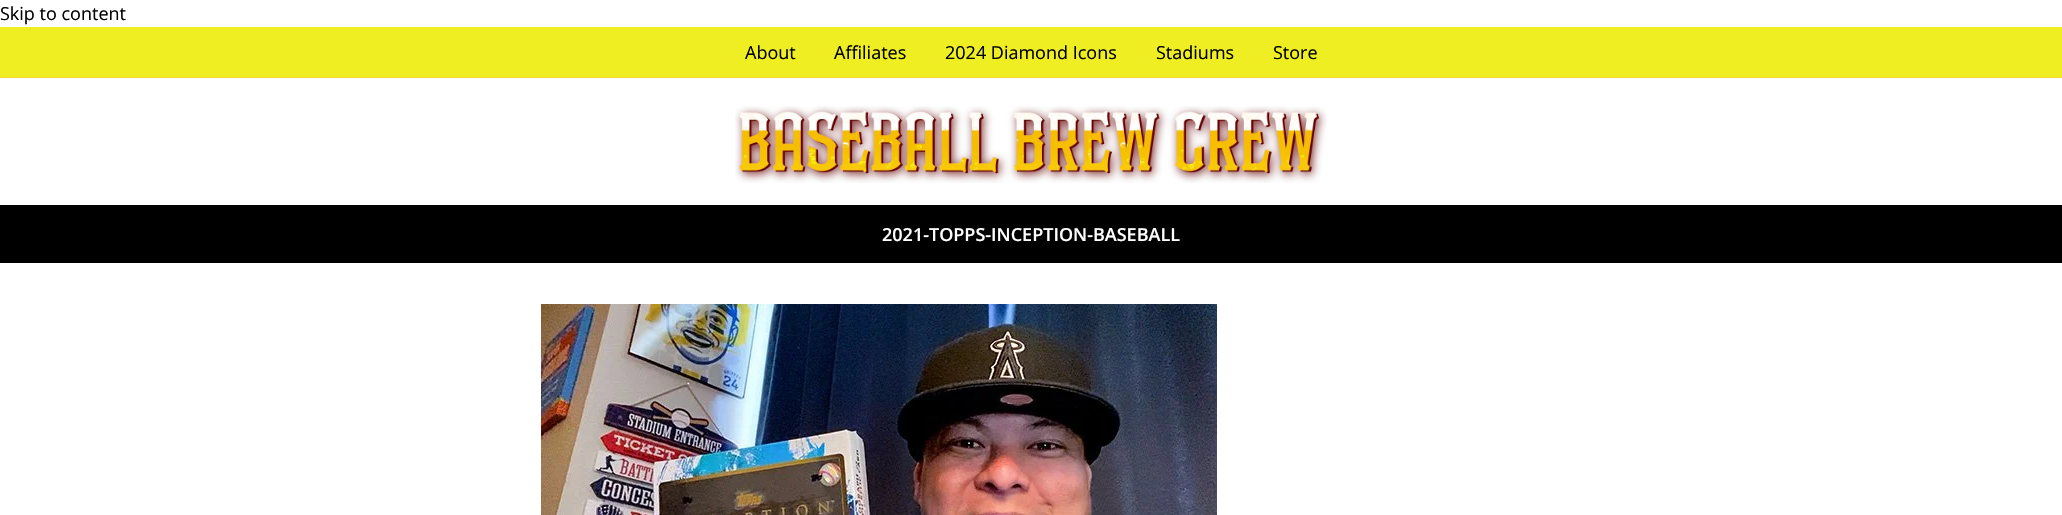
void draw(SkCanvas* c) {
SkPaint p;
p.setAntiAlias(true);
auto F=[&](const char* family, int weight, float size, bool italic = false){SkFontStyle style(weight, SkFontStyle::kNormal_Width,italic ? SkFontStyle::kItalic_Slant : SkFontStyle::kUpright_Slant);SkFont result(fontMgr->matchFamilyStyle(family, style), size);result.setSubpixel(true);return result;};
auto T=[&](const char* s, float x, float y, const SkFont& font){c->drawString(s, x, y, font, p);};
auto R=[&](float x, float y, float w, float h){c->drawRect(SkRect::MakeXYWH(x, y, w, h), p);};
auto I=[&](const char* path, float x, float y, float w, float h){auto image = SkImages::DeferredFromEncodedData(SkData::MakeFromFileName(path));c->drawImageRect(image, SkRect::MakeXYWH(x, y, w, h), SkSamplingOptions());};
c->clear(0xffffffff);
auto f1 = F("Open Sans",400,18);
p.setColor(0xff000000);
T("Skip to content",0,20,f1);
p.setColor(0xffeeee22);
R(0,27,2062,50);
p.setColor(0xfff3d835);
R(0,77,2062,1);
p.setColor(0xff000000);
T("About",745,59,f1);
T("Affiliates",834,59,f1);
T("2024 Diamond Icons",945,59,f1);
T("Stadiums",1156,59,f1);
T("Store",1273,59,f1);
I("1.png",735,106,592,77);
R(0,205,2062,58);
auto f2 = F("Open Sans",600,18);
p.setColor(0xffffffff);
T("2021-TOPPS-INCEPTION-BASEBALL",882,241,f2);
I("2.png",541,304,676,211);
}
